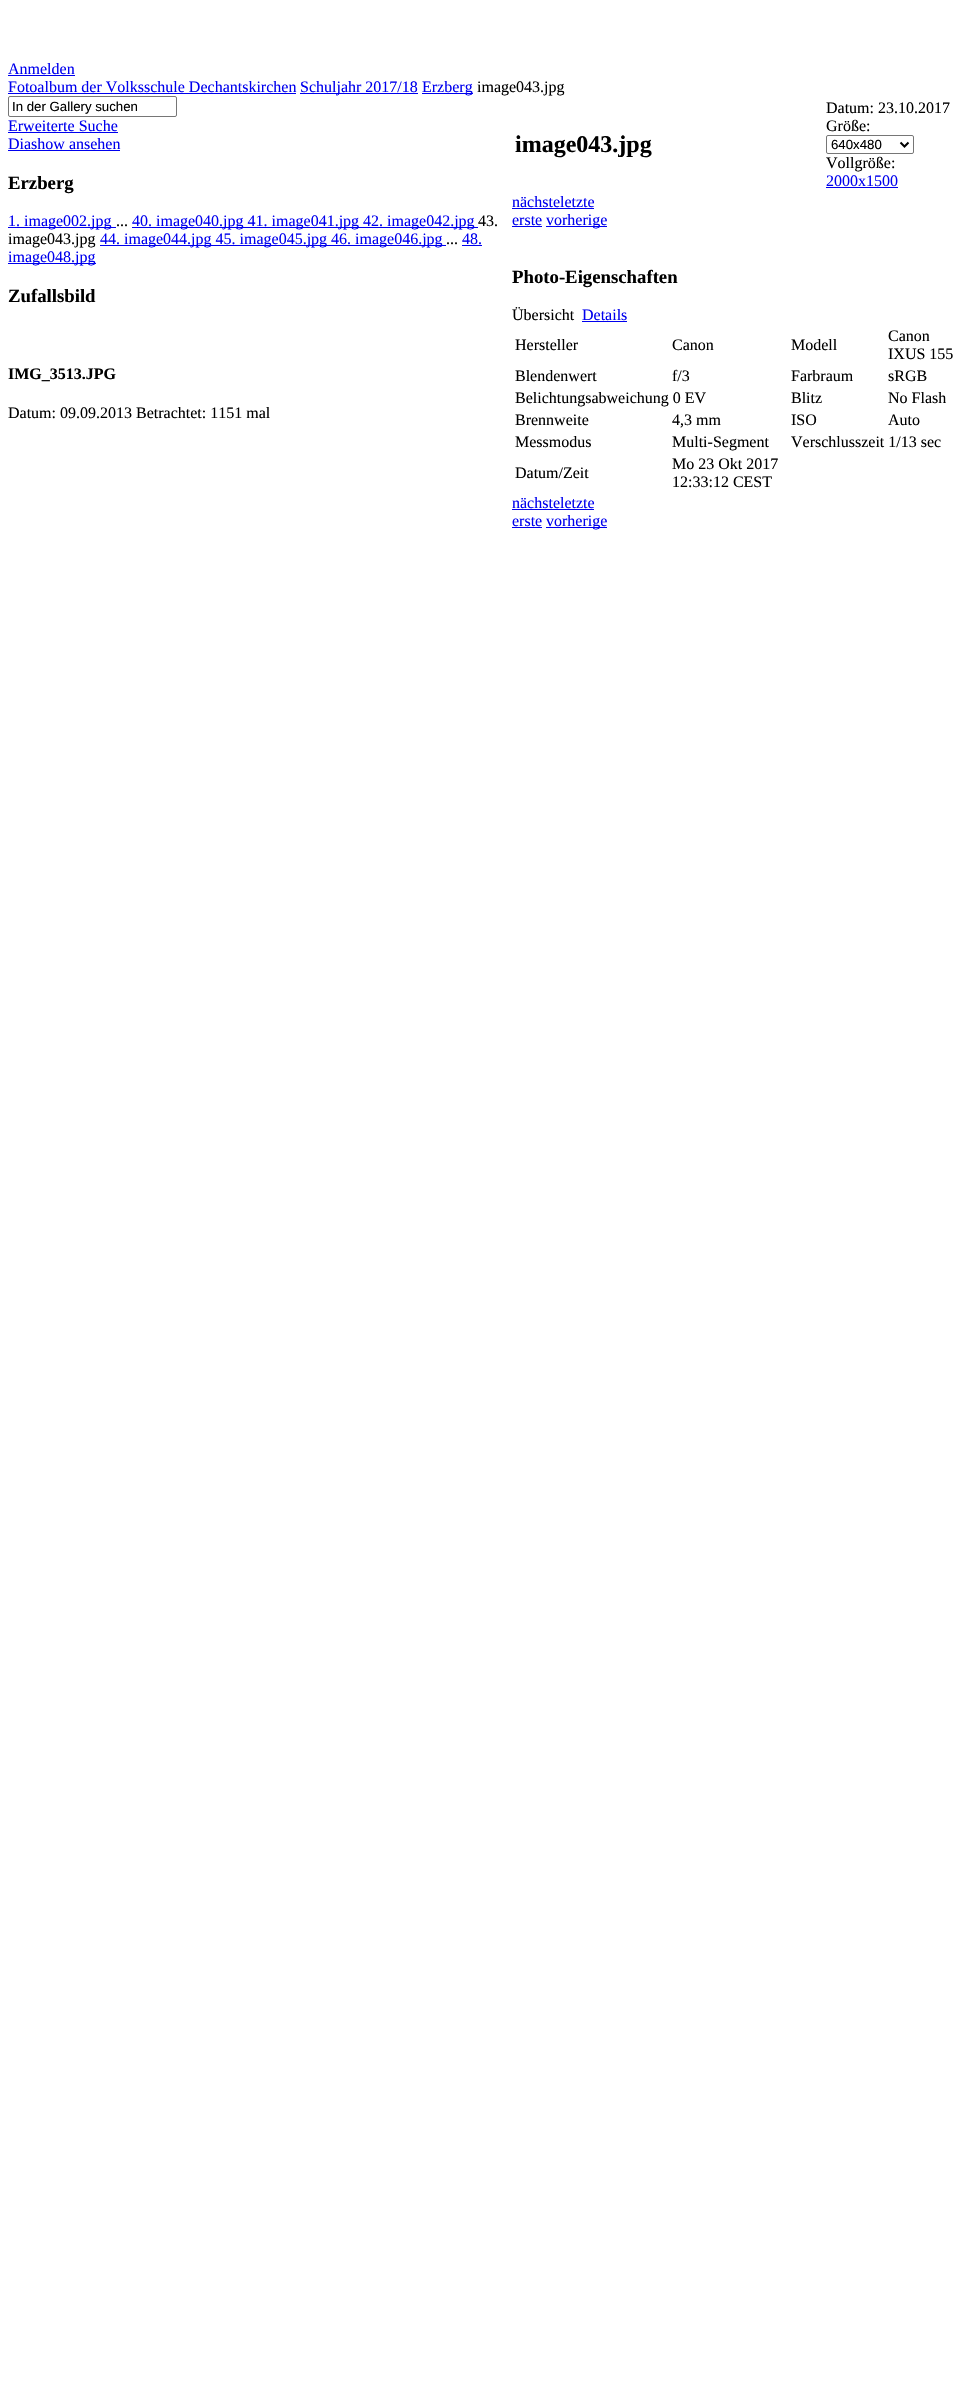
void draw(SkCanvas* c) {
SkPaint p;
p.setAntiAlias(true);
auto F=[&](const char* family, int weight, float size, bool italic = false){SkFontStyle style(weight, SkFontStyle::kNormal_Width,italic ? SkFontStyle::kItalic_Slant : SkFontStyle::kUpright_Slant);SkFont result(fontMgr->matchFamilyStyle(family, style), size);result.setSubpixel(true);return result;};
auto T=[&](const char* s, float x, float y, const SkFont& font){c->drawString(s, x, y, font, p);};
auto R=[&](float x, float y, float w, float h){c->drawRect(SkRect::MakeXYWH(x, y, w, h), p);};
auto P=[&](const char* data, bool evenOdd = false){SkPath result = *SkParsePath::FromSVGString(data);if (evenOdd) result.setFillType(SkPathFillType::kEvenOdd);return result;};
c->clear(0xffffffff);
auto f1 = F("Liberation Serif",400,16);
p.setColor(0xff0000ee);
T("Anmelden",8,74,f1);
R(8,75,67,1);
T("Fotoalbum der Volksschule Dechantskirchen",8,92,f1);
R(8,93,288,1);
R(300,93,118,1);
T("Schuljahr 2017/18",300,92,f1);
R(422,93,51,1);
T("Erzberg",422,92,f1);
p.setColor(0xff000000);
T("image043.jpg",477,92,f1);
p.setStroke(true);
p.setStrokeWidth(1);
p.setColor(0xff767676);
c->drawRoundRect(SkRect::MakeXYWH(8.5,96.5,168,20),1.5,1.5,p);
auto f2 = F("Liberation Sans",400,13.25);
p.setStroke(false);
p.setColor(0xff000000);
T("In der Gallery suchen",12,111,f2);
p.setColor(0xff0000ee);
T("Erweiterte Suche",8,131,f1);
R(8,132,110,1);
T("Diashow ansehen",8,149,f1);
R(8,150,112,1);
auto f3 = F("Liberation Serif",700,18.75);
p.setColor(0xff000000);
T("Erzberg",8,189,f3);
p.setColor(0xff0000ee);
R(8,227,108,1);
T("1. image002.jpg",8,226,f1);
p.setColor(0xff000000);
T("...",116,226,f1);
p.setColor(0xff0000ee);
R(132,227,346,1);
T("40. image040.jpg 41. image041.jpg 42. image042.jpg",132,226,f1);
p.setColor(0xff000000);
T("43.",478,226,f1);
T("image043.jpg",8,244,f1);
p.setColor(0xff0000ee);
R(100,245,346,1);
T("44. image044.jpg 45. image045.jpg 46. image046.jpg",100,244,f1);
p.setColor(0xff000000);
T("...",446,244,f1);
p.setColor(0xff0000ee);
T("48.",462,244,f1);
R(462,245,20,1);
R(8,263,88,1);
T("image048.jpg",8,262,f1);
p.setColor(0xff000000);
T("Zufallsbild",8,302,f3);
auto f4 = F("Liberation Serif",700,16);
T("IMG_3513.JPG",8,379,f4);
T("Datum: 09.09.2013 Betrachtet: 1151 mal",8,418,f1);
auto f5 = F("Liberation Serif",700,24);
T("image043.jpg",515,152,f5);
T("Datum: 23.10.2017",826,113,f1);
T("Größe:",826,131,f1);
p.setStroke(true);
p.setColor(0xff767676);
c->drawRoundRect(SkRect::MakeXYWH(826.5,135.5,87,18),1.5,1.5,p);
p.setStrokeWidth(2);
p.setColor(0xff000000);
c->drawPath(P("M900.5 142.5l4 4l4-4"),p);
p.setStroke(false);
T("640x480",831,149,f2);
T("Vollgröße:",826,168,f1);
p.setColor(0xff0000ee);
T("2000x1500",826,186,f1);
R(826,187,72,1);
T("nächsteletzte",512,207,f1);
R(512,208,82,1);
T("erste",512,225,f1);
R(512,226,30,1);
R(546,226,61,1);
T("vorherige",546,225,f1);
p.setColor(0xff000000);
T("Photo-Eigenschaften",512,283,f3);
T("Übersicht",512,320,f1);
p.setColor(0xff0000ee);
T("Details",582,320,f1);
R(582,321,45,1);
p.setColor(0xff000000);
T("Hersteller",515,350,f1);
T("Canon",672,350,f1);
T("Modell",791,350,f1);
T("Canon",888,341,f1);
T("IXUS 155",888,359,f1);
T("Blendenwert",515,381,f1);
T("f/3",672,381,f1);
T("Farbraum",791,381,f1);
T("sRGB",888,381,f1);
T("Belichtungsabweichung 0 EV",515,403,f1);
T("Blitz",791,403,f1);
T("No Flash",888,403,f1);
T("Brennweite",515,425,f1);
T("4,3 mm",672,425,f1);
T("ISO",791,425,f1);
T("Auto",888,425,f1);
T("Messmodus",515,447,f1);
T("Multi-Segment",672,447,f1);
T("Verschlusszeit 1/13 sec",791,447,f1);
T("Datum/Zeit",515,478,f1);
T("Mo 23 Okt 2017",672,469,f1);
T("12:33:12 CEST",672,487,f1);
p.setColor(0xff0000ee);
T("nächsteletzte",512,508,f1);
R(512,509,82,1);
T("erste",512,526,f1);
R(512,527,30,1);
R(546,527,61,1);
T("vorherige",546,526,f1);
}
